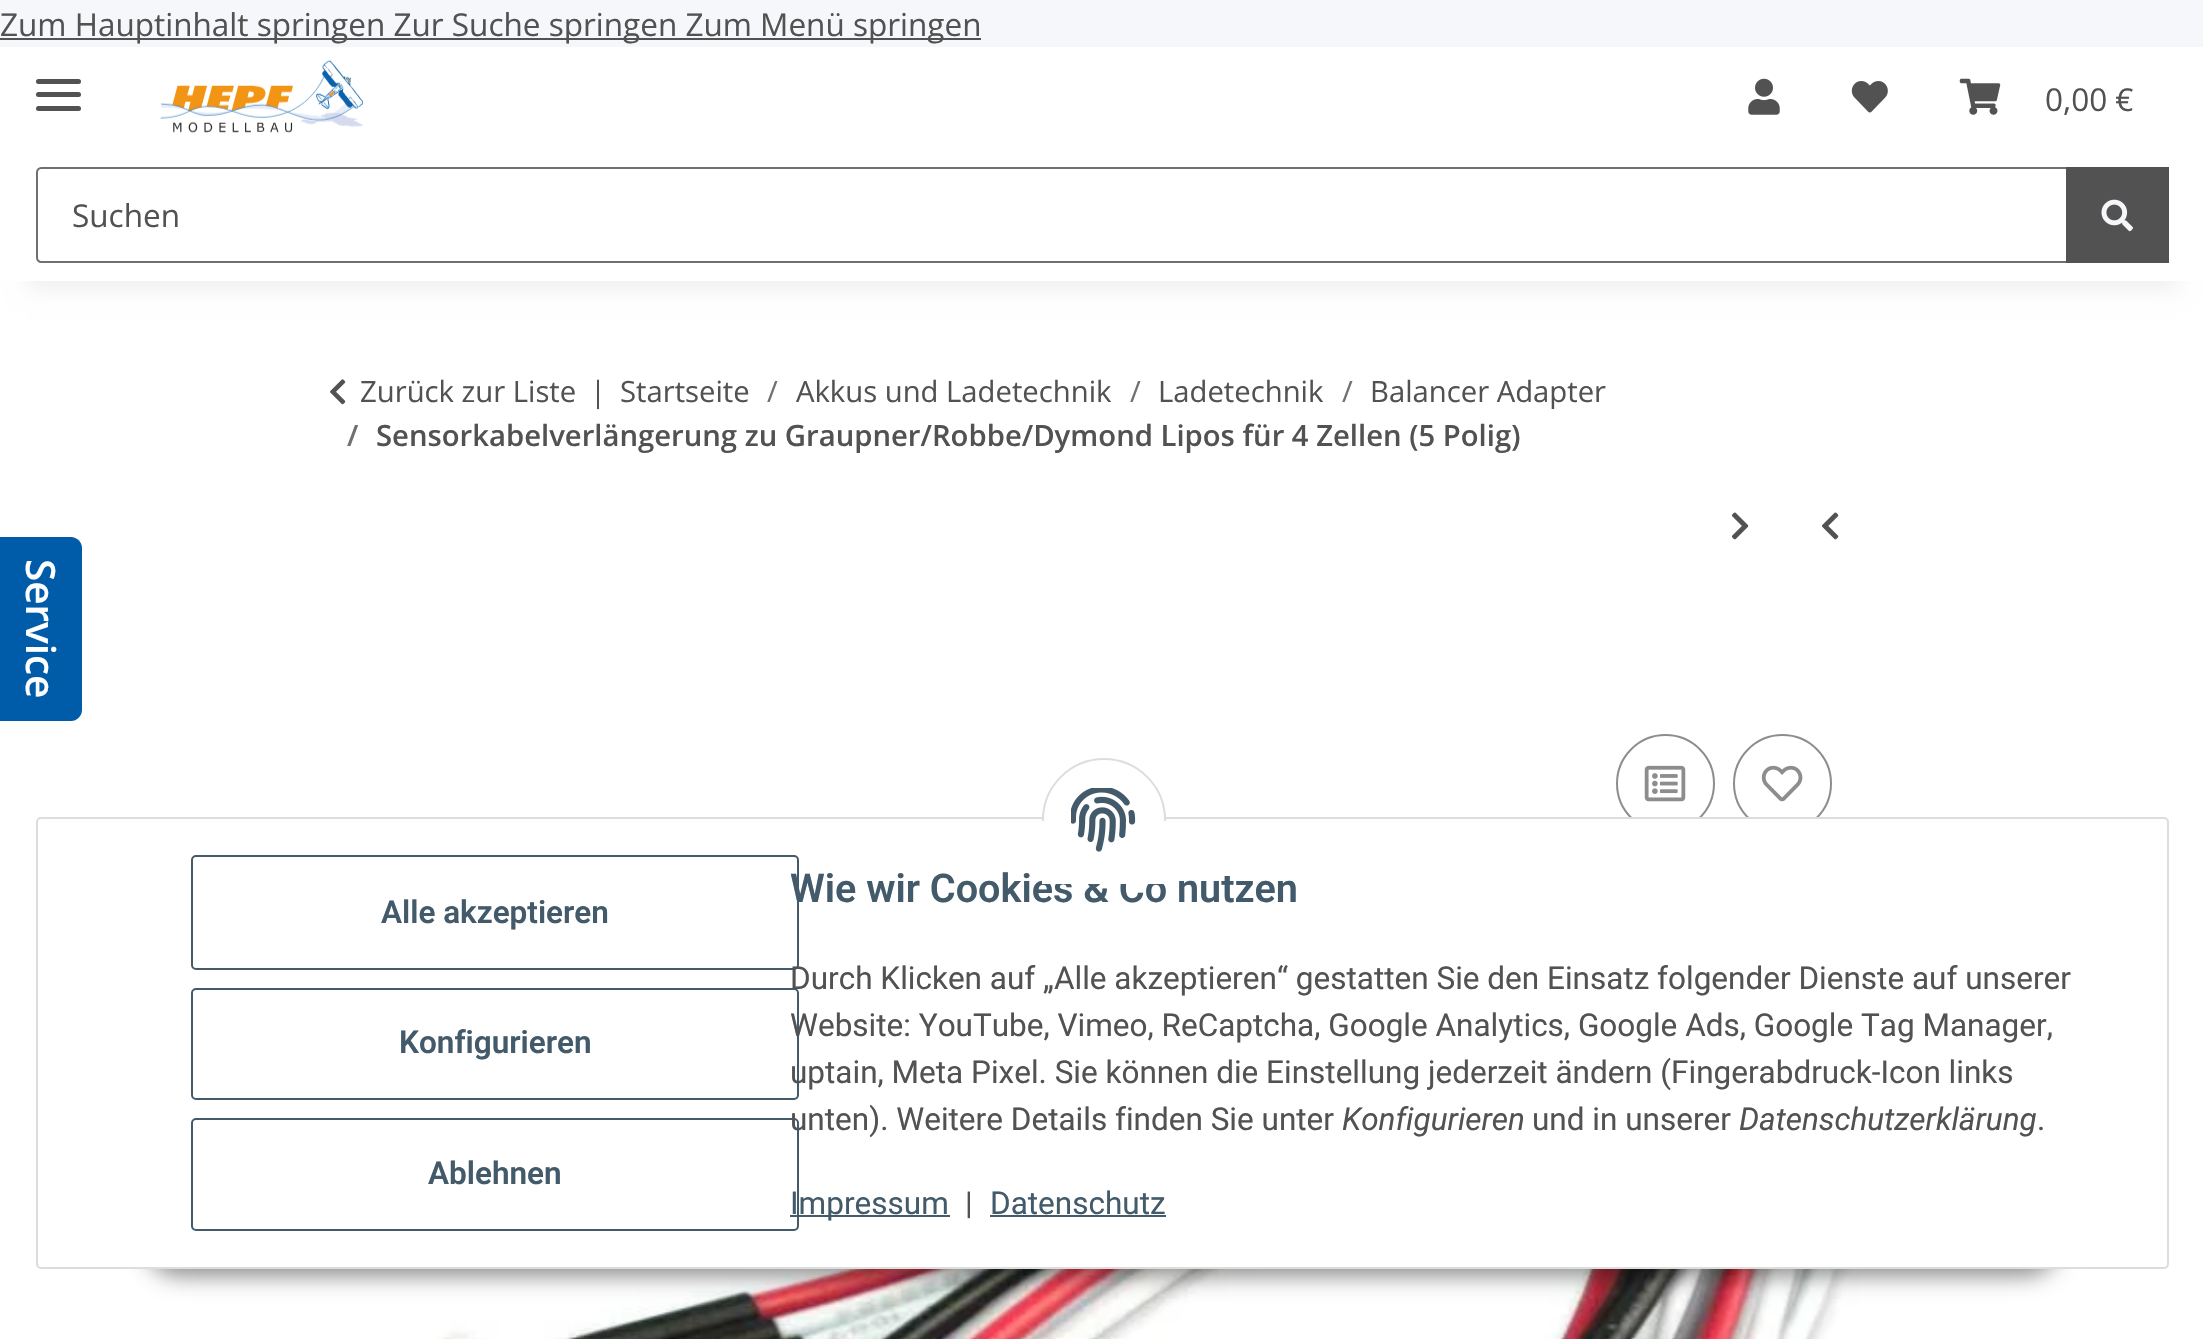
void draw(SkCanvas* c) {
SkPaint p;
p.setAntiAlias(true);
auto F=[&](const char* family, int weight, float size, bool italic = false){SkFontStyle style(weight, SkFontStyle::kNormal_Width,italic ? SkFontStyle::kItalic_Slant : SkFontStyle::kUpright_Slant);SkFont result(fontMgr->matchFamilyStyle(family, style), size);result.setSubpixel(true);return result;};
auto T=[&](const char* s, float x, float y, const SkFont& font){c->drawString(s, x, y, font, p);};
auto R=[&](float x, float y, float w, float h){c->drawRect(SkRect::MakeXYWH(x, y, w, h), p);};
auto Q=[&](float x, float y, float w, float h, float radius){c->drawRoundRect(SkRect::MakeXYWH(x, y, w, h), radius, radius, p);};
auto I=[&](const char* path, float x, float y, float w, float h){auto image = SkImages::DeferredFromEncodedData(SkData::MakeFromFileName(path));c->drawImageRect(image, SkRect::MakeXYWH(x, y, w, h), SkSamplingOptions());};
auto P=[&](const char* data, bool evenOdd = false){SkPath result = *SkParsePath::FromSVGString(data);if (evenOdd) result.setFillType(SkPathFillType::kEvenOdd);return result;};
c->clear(0xfff5f7fa);
p.setColor(0xff525252);
R(0,38,981,2);
auto f1 = F("Open Sans",400,31.5);
T("Zum Hauptinhalt springen Zur Suche springen Zum Menü springen",0,36,f1);
p.setColor(0xffffffff);
R(0,281,2203,1058);
p.setColor(0x0f000000);
p.setMaskFilter(SkMaskFilter::MakeBlur(kNormal_SkBlurStyle, 10));
c->drawRect(SkRect::MakeXYWH(27,110,2151,180),p);
p.setMaskFilter(nullptr);
p.setColor(0xffffffff);
R(0,47,2203,234);
p.setColor(0xff525252);
Q(36,92,45,5,2.5);
Q(36,79,45,5,2.5);
Q(36,106,45,5,2.5);
I("1.png",160,60,204,73);
I("2.png",1748,78,32,37);
I("3.png",1851,81,37,32);
I("4.png",1959,78,42,37);
T("0,00 €",2045,111,f1);
p.setStroke(true);
p.setStrokeWidth(2);
p.setColor(0xff707070);
c->drawPath(P("M41 168h2026v94h-2026c-2 0-4-2-4-4v-86c0-2 2-4 4-4z"),p);
p.setStroke(false);
p.setColor(0xff525252);
T("Suchen",72,227,f1);
R(2066,167,103,96);
I("5.png",2101,199,32,33);
I("6.png",330,379,16,26);
auto f2 = F("Open Sans",400,29.25);
T("Zurück zur Liste",360,402,f2);
T("|",590,402,f2);
T("Startseite",620,402,f2);
p.setColor(0xff707070);
T("/",767,402,f2);
p.setColor(0xff525252);
T("Akkus und Ladetechnik",796,402,f2);
p.setColor(0xff707070);
T("/",1130,402,f2);
p.setColor(0xff525252);
T("Ladetechnik",1158,402,f2);
p.setColor(0xff707070);
T("/",1342,402,f2);
p.setColor(0xff525252);
T("Balancer Adapter",1370,402,f2);
auto f3 = F("Open Sans",600,29.25);
p.setColor(0xff707070);
T("/",347,446,f3);
p.setColor(0xff525252);
T("Sensorkabelverlängerung zu Graupner/Robbe/Dymond Lipos für 4 Zellen (5 Polig)",376,446,f3);
I("7.png",1732,512,17,28);
I("8.png",1821,512,18,28);
p.setStroke(true);
p.setColor(0xff8d8d8d);
c->drawCircle(1665.5,783.5,48.5,p);
I("9.png",1644,765,42,37);
c->drawCircle(1782.5,783.5,48.5,p);
I("10.png",1761,765,42,37);
I("11.png",437,1269,1424,70);
p.setStroke(false);
p.setColor(0xff005ca9);
c->drawPath(P("M82 548v162c0 6-5 11-11 11h-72v-184h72c6 0 11 5 11 11z"),p);
auto f4 = F("Open Sans",600,40.5);
p.setColor(0xffffffff);
c->save();
c->rotate(90,26,559);
T("Service",26,559,f4);
c->restore();
p.setColor(0x73000000);
p.setMaskFilter(SkMaskFilter::MakeBlur(kNormal_SkBlurStyle, 11));
c->drawRoundRect(SkRect::MakeXYWH(144,1204,1917,72),36,36,p);
p.setMaskFilter(nullptr);
p.setColor(0xffffffff);
c->drawRoundRect(SkRect::MakeXYWH(37,818,2131,450),4,4,p);
p.setStroke(true);
p.setColor(0xffdddddd);
c->drawRoundRect(SkRect::MakeXYWH(37,818,2131,450),4,4,p);
p.setColor(0xff435a6b);
c->drawRoundRect(SkRect::MakeXYWH(192,856,606,113),4,4,p);
auto f5 = F("Roboto",600,39.6);
p.setStroke(false);
T("Wie wir Cookies & Co nutzen",790,902,f5);
p.setColor(0xffffffff);
c->drawCircle(1104,820,61,p);
p.setStroke(true);
p.setColor(0xffdddddd);
c->drawCircle(1104,820,61,p);
p.setStroke(false);
p.setColor(0xffffffff);
R(1042,821,124,63);
I("12.png",1071,788,65,64);
auto f6 = F("Roboto",600,31.5);
p.setColor(0xff435a6b);
T("Alle akzeptieren",381,923,f6);
p.setStroke(true);
c->drawRoundRect(SkRect::MakeXYWH(192,989,606,110),4,4,p);
p.setStroke(false);
T("Konfigurieren",399,1053,f6);
p.setStroke(true);
c->drawRoundRect(SkRect::MakeXYWH(192,1119,606,111),4,4,p);
p.setStroke(false);
T("Ablehnen",428,1184,f6);
auto f7 = F("Roboto",400,31.5);
p.setColor(0xff525252);
T("Durch Klicken auf „Alle akzeptieren“ gestatten Sie den Einsatz folgender Dienste auf unserer",790,989,f7);
T("Website: YouTube, Vimeo, ReCaptcha, Google Analytics, Google Ads, Google Tag Manager,",790,1036,f7);
T("uptain, Meta Pixel. Sie können die Einstellung jederzeit ändern (Fingerabdruck-Icon links",790,1083,f7);
T("unten). Weitere Details finden Sie unter",790,1130,f7);
auto f8 = F("Roboto",400,31.5,true);
T("Konfigurieren",1342,1130,f8);
T("und in unserer",1532,1130,f7);
T("Datenschutzerklärung",1739,1130,f8);
T(".",2037,1130,f7);
p.setColor(0xff435a6b);
R(790,1215,160,2);
T("Impressum",790,1214,f7);
p.setColor(0xff525252);
T("|",965,1214,f7);
p.setColor(0xff435a6b);
T("Datenschutz",990,1214,f7);
R(990,1215,176,2);
}
